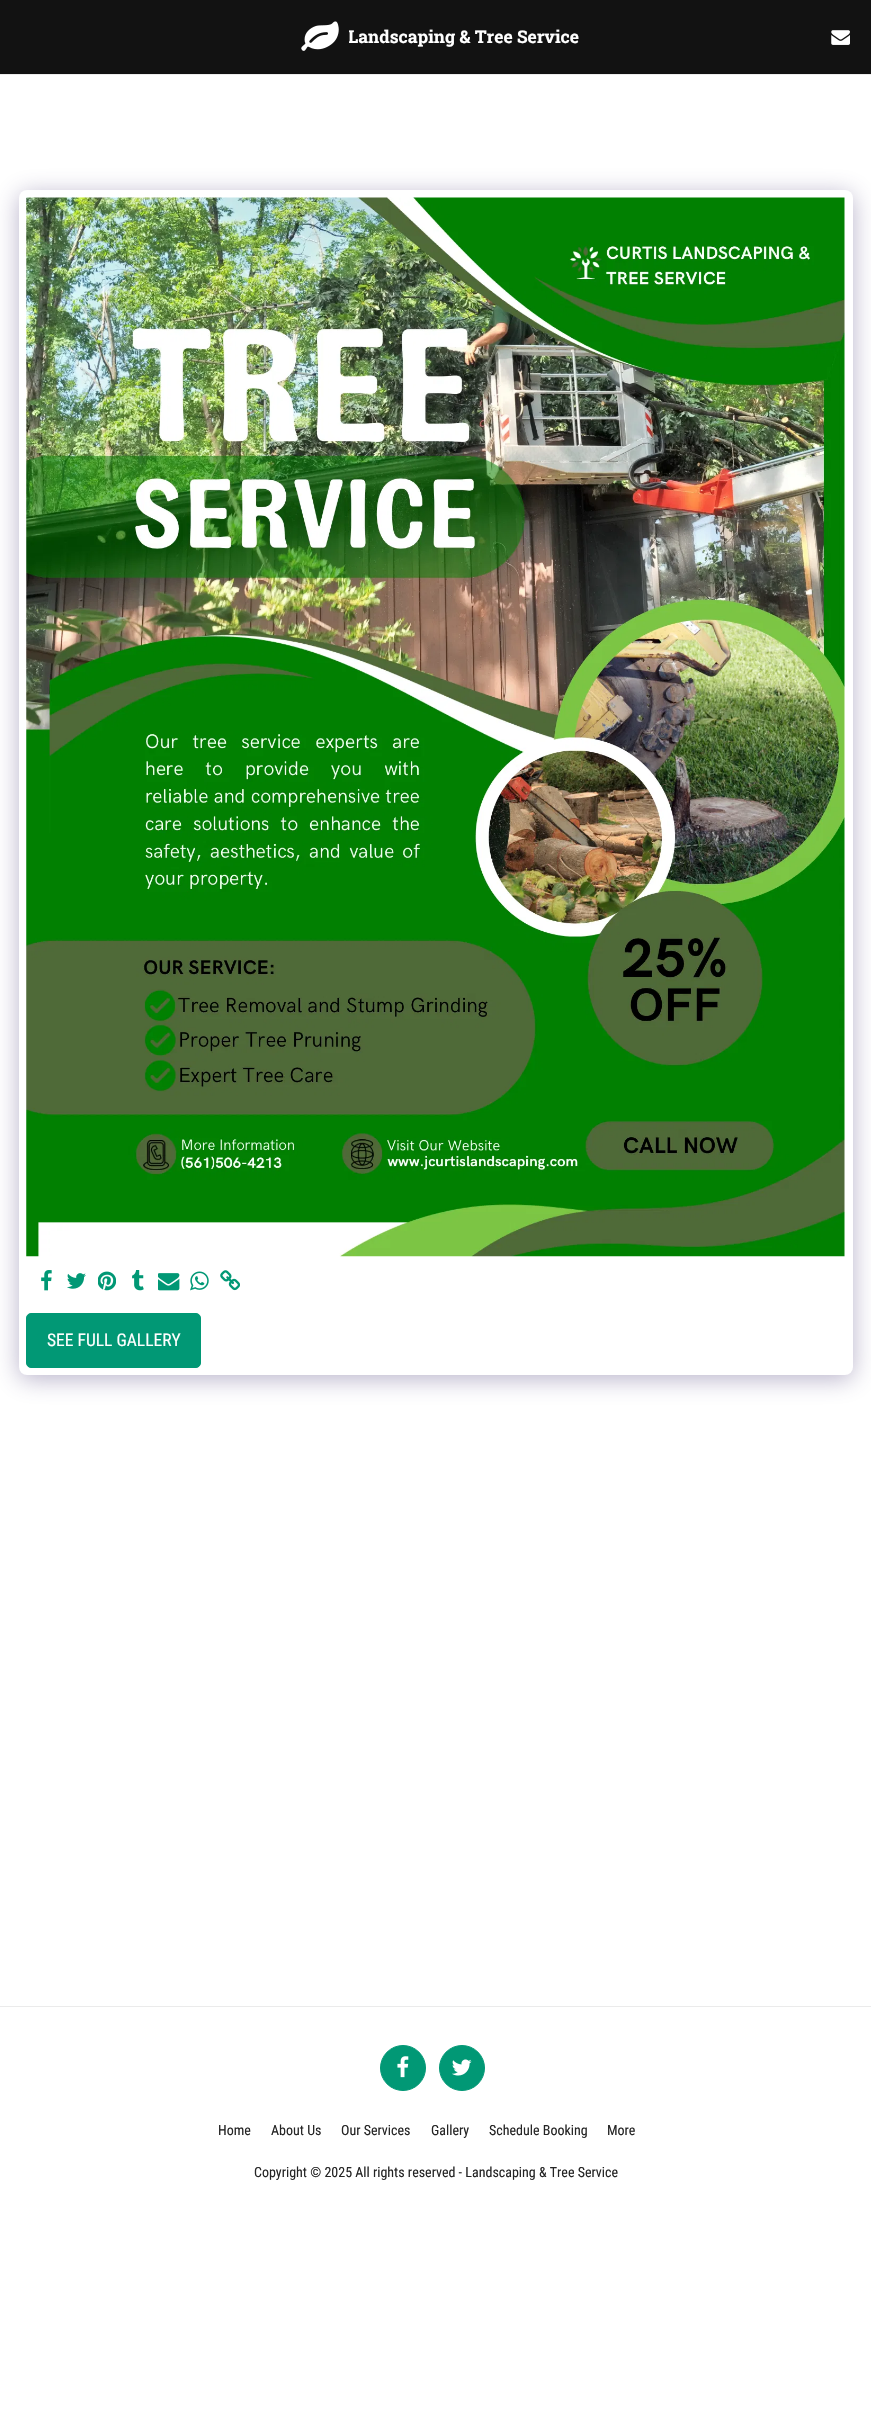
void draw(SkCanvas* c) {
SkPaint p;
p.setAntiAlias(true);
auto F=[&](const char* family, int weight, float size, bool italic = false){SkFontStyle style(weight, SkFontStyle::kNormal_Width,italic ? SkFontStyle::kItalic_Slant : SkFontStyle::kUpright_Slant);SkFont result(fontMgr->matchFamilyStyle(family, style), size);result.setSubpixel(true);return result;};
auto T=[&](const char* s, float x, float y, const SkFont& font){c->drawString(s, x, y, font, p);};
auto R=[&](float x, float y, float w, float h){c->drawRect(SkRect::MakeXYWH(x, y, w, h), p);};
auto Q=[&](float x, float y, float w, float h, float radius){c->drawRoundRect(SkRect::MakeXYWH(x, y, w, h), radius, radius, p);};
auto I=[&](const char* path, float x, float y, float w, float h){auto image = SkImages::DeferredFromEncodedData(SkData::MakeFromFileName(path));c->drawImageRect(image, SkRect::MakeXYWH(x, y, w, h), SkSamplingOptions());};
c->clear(0xffffffff);
p.setColor(0xff121212);
R(0,0,871,74);
p.setColor(0xffebebeb);
R(0,74,871,1);
I("1.png",301,21,38,30);
c->save();
c->clipRect(SkRect::MakeXYWH(349,25,230,25));
auto f1 = F("Roboto Slab",700,17.5);
p.setColor(0xffffffff);
T("Landscaping & Tree Service",348,43,f1);
c->restore();
I("2.png",831,30,19,15);
p.setColor(0x664d3f7a);
p.setMaskFilter(SkMaskFilter::MakeBlur(kNormal_SkBlurStyle, 12.5));
c->drawRoundRect(SkRect::MakeXYWH(19,194,834,1185),8,8,p);
p.setMaskFilter(nullptr);
p.setColor(0xffffffff);
Q(19,190,834,1185,8);
I("3.png",26,197,819,1060);
I("4.png",41,1270,11,21);
I("5.png",67,1273,19,16);
I("6.png",98,1271,18,20);
I("7.png",132,1270,12,21);
I("8.png",158,1273,22,18);
I("9.png",190,1271,19,20);
I("10.png",220,1270,20,21);
p.setColor(0xff019875);
c->drawRoundRect(SkRect::MakeXYWH(26.5,1313.5,174,54),4.5,4.5,p);
p.setStroke(true);
p.setStrokeWidth(1);
c->drawRoundRect(SkRect::MakeXYWH(26.5,1313.5,174,54),4.5,4.5,p);
auto f2 = F("Roboto Condensed",400,17.5);
p.setStroke(false);
p.setColor(0xffffffff);
T("SEE FULL GALLERY",47,1346,f2);
p.setColor(0xffebebeb);
R(0,2006,871,1);
p.setColor(0xff019875);
c->drawCircle(403,2068,22.5,p);
p.setStroke(true);
c->drawCircle(403,2068,22.5,p);
I("11.png",397,2056,12,22);
p.setStroke(false);
c->drawCircle(462,2068,22.5,p);
p.setStroke(true);
c->drawCircle(462,2068,22.5,p);
I("12.png",452,2059,20,17);
auto f3 = F("Roboto Condensed",400,14);
p.setStroke(false);
p.setColor(0xff252525);
T("Home",218,2135,f3);
T("About Us",271,2135,f3);
T("Our Services",341,2135,f3);
T("Gallery",431,2135,f3);
T("Schedule Booking",489,2135,f3);
T("More",607,2135,f3);
T("Copyright © 2025 All rights reserved - Landscaping & Tree Service",254,2177,f3);
}
